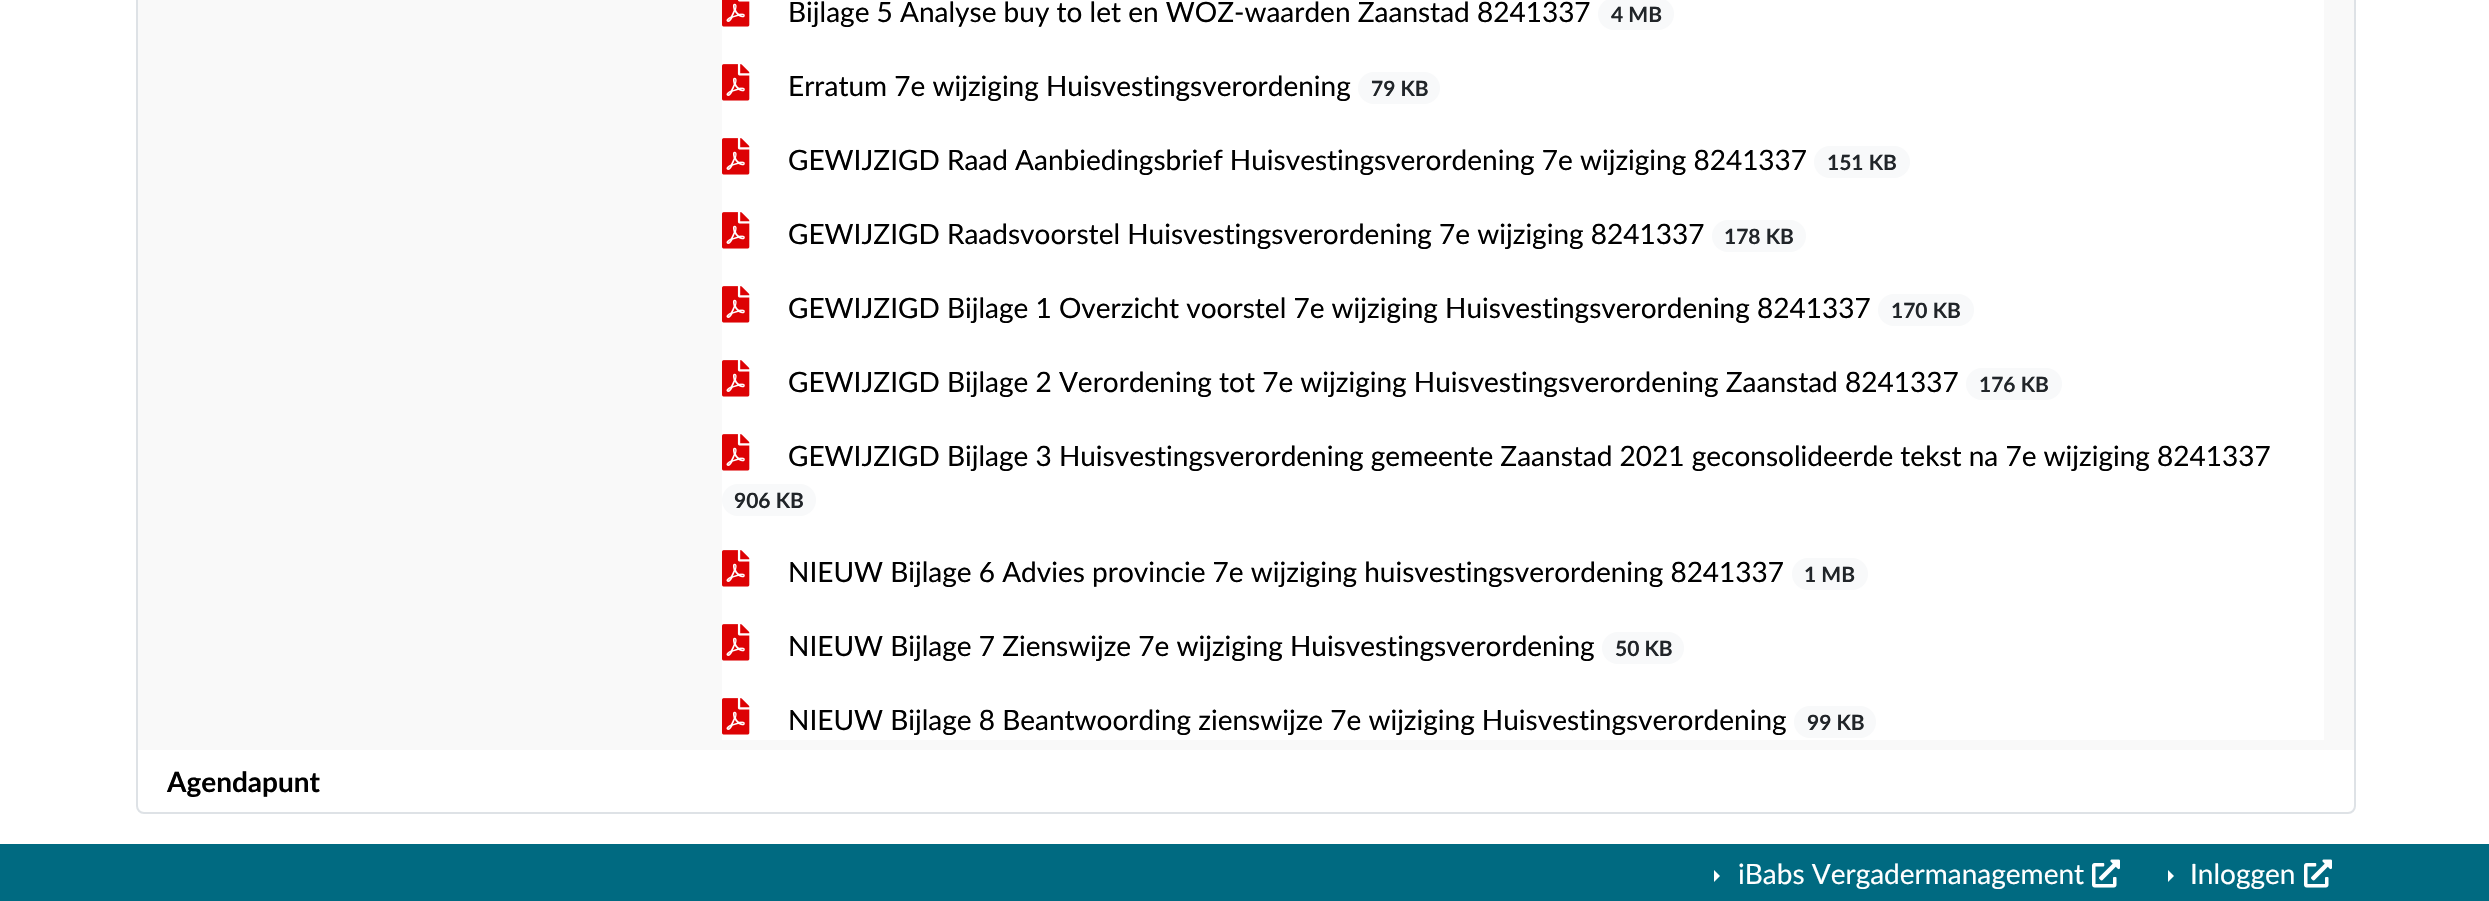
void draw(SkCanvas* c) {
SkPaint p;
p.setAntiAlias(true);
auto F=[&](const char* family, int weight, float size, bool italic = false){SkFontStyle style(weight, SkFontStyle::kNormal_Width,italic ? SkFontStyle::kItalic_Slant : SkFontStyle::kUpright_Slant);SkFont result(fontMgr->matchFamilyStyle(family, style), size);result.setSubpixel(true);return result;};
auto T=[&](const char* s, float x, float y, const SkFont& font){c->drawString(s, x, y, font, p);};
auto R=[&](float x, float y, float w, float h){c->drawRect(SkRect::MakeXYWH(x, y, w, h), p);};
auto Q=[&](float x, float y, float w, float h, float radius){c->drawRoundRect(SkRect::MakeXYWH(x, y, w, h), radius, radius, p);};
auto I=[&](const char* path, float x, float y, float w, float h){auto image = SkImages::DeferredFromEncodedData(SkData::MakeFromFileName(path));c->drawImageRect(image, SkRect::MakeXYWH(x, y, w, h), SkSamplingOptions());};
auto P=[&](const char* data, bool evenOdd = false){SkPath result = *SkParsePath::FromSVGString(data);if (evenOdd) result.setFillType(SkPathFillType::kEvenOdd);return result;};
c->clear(0xffffffff);
p.setStroke(true);
p.setStrokeWidth(2);
p.setColor(0xffdee2e6);
c->drawRoundRect(SkRect::MakeXYWH(137,-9,2218,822),7,7,p);
p.setStroke(false);
p.setColor(0xfff9f9f9);
R(138,0,2216,750);
p.setColor(0xffffffff);
R(722,0,1602,740);
I("1.png",722,0,28,27);
auto f1 = F("Lato",400,28);
p.setColor(0xff000000);
T("Bijlage 5 Analyse buy to let en WOZ-waarden Zaanstad 8241337",788,22,f1);
p.setColor(0xfff8f9fa);
Q(1598,-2,76,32,16);
auto f2 = F("Lato",700,21);
p.setColor(0xff212529);
T("4 MB",1611,22,f2);
I("2.png",722,64,28,37);
p.setColor(0xff000000);
T("Erratum 7e wijziging Huisvestingsverordening",788,96,f1);
p.setColor(0xfff8f9fa);
Q(1358,72,82,32,16);
p.setColor(0xff212529);
T("79 KB",1371,96,f2);
I("2.png",722,138,28,37);
p.setColor(0xff000000);
T("GEWIJZIGD Raad Aanbiedingsbrief Huisvestingsverordening 7e wijziging 8241337",788,170,f1);
p.setColor(0xfff8f9fa);
Q(1814,146,96,32,16);
p.setColor(0xff212529);
T("151 KB",1827,170,f2);
I("2.png",722,212,28,37);
p.setColor(0xff000000);
T("GEWIJZIGD Raadsvoorstel Huisvestingsverordening 7e wijziging 8241337",788,244,f1);
p.setColor(0xfff8f9fa);
Q(1712,220,94,32,16);
p.setColor(0xff212529);
T("178 KB",1724,244,f2);
I("2.png",722,286,28,37);
p.setColor(0xff000000);
T("GEWIJZIGD Bijlage 1 Overzicht voorstel 7e wijziging Huisvestingsverordening 8241337",788,318,f1);
p.setColor(0xfff8f9fa);
Q(1878,294,96,32,16);
p.setColor(0xff212529);
T("170 KB",1891,318,f2);
I("2.png",722,360,28,37);
p.setColor(0xff000000);
T("GEWIJZIGD Bijlage 2 Verordening tot 7e wijziging Huisvestingsverordening Zaanstad 8241337",788,392,f1);
p.setColor(0xfff8f9fa);
Q(1966,368,96,32,16);
p.setColor(0xff212529);
T("176 KB",1979,392,f2);
I("2.png",722,434,28,37);
p.setColor(0xff000000);
T("GEWIJZIGD Bijlage 3 Huisvestingsverordening gemeente Zaanstad 2021 geconsolideerde tekst na 7e wijziging 8241337",788,466,f1);
p.setColor(0xfff8f9fa);
Q(722,484,94,32,16);
p.setColor(0xff212529);
T("906 KB",734,508,f2);
I("2.png",722,550,28,37);
p.setColor(0xff000000);
T("NIEUW Bijlage 6 Advies provincie 7e wijziging huisvestingsverordening 8241337",788,582,f1);
p.setColor(0xfff8f9fa);
Q(1792,558,76,32,16);
p.setColor(0xff212529);
T("1 MB",1804,582,f2);
I("2.png",722,624,28,37);
p.setColor(0xff000000);
T("NIEUW Bijlage 7 Zienswijze 7e wijziging Huisvestingsverordening",788,656,f1);
p.setColor(0xfff8f9fa);
Q(1602,632,82,32,16);
p.setColor(0xff212529);
T("50 KB",1615,656,f2);
I("2.png",722,698,28,37);
p.setColor(0xff000000);
T("NIEUW Bijlage 8 Beantwoording zienswijze 7e wijziging Huisvestingsverordening",788,730,f1);
p.setColor(0xfff8f9fa);
Q(1794,706,82,32,16);
p.setColor(0xff212529);
T("99 KB",1807,730,f2);
auto f3 = F("Lato",700,28);
p.setColor(0xff000000);
T("Agendapunt",167,792,f3);
p.setColor(0xff006a81);
R(0,844,2489,57);
p.setColor(0xffffffff);
c->drawPath(P("M1714 882v-12l6 6z"),p);
T("iBabs Vergadermanagement",1738,884,f1);
I("3.png",2092,859,28,29);
c->drawPath(P("M2168 882v-12l6 6z"),p);
T("Inloggen",2190,884,f1);
I("3.png",2304,859,28,29);
}
